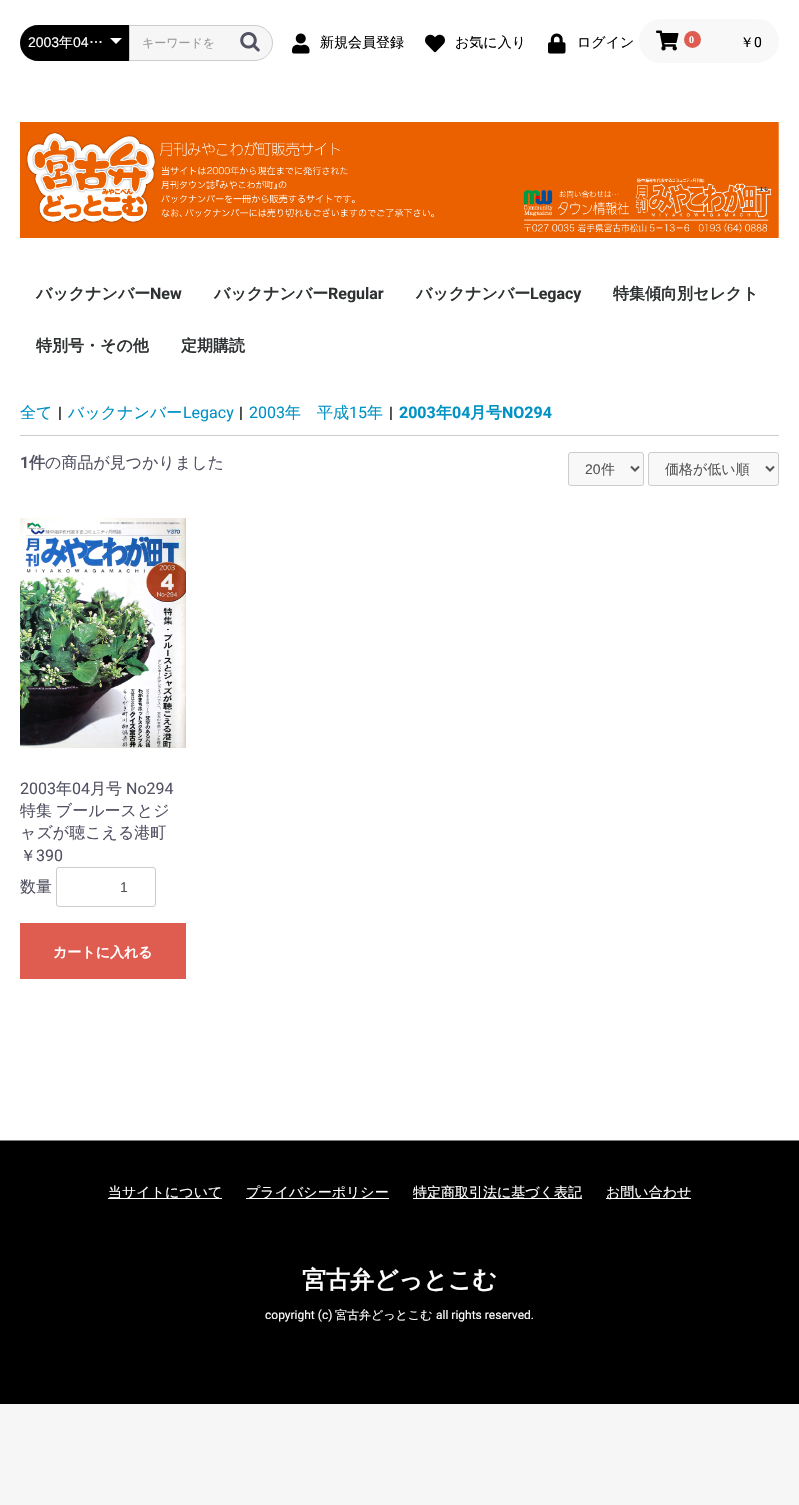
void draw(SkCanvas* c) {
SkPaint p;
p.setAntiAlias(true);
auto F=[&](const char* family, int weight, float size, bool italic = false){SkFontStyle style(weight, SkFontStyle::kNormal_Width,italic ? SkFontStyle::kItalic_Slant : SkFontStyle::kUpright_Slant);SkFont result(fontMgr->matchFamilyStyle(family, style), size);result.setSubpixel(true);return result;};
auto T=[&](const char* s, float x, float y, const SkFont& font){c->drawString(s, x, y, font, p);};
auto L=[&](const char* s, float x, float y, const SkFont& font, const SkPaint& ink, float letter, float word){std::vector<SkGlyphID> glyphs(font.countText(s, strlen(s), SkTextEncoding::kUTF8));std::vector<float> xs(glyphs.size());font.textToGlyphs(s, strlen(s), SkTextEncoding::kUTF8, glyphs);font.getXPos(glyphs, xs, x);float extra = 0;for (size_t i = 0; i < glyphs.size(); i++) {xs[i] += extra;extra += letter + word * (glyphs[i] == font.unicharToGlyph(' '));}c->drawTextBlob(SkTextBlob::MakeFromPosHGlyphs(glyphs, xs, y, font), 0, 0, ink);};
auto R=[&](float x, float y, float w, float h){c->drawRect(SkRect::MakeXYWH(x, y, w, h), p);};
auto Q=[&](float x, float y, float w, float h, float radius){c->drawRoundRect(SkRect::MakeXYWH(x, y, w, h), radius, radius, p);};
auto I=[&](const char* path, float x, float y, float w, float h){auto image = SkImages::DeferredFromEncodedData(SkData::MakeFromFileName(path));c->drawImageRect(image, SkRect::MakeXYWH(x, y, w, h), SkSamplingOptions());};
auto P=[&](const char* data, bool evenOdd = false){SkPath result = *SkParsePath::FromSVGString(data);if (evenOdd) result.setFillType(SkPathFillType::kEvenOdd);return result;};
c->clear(0xfff6f6f6);
p.setColor(0xffffffff);
R(0,0,799,1140);
p.setColor(0xff000000);
c->drawPath(P("M38 25h91v36h-91c-10 0-18-8-18-18c0-10 8-18 18-18z"),p);
auto f1 = F("Liberation Sans",400,14);
p.setColor(0xffffffff);
T("2003",28,47,f1);
auto f2 = F("WenQuanYi Zen Hei",500,14);
T("年",59,47,f2);
T("04",73,47,f1);
T("…",89,47,f2);
c->drawPath(P("M110 38h12l-6 6z"),p);
p.setColor(0xfff6f6f6);
c->drawPath(P("M129.5 25.5h125.5c9.5 0 17.5 8 17.5 17.5c0 9.5-8 17.5-17.5 17.5h-125.5z"),p);
p.setStroke(true);
p.setStrokeWidth(1);
p.setColor(0xffcccccc);
c->drawPath(P("M129.5 25.5h125.5c9.5 0 17.5 8 17.5 17.5c0 9.5-8 17.5-17.5 17.5h-125.5z"),p);
auto f3 = F("WenQuanYi Zen Hei",500,12);
p.setStroke(false);
p.setColor(0xff999999);
T("キーワードを",142,47,f3);
I("1.png",240,32,20,20);
I("2.png",292,33,18,21);
p.setColor(0xff000000);
T("新規会員登録",320,47,f2);
I("3.png",425,34,20,19);
T("お気に入り",455,47,f2);
I("4.png",548,33,18,21);
T("ログイン",577,47,f2);
p.setColor(0xfff8f8f8);
Q(639,19,140,44,22);
I("5.png",656,30,23,21);
p.setColor(0xffde5d50);
c->drawCircle(692.5,39.5,8.5,p);
auto f4 = F("Liberation Serif",700,10);
p.setColor(0xffffffff);
T("0",689,43,f4);
p.setColor(0xff000000);
T("￥",740,47,f2);
auto f5 = F("Roboto",400,14);
T("0",754,47,f5);
I("6.png",20,122,759,116);
auto f6 = F("WenQuanYi Zen Hei",700,16);
p.setColor(0xff2e3233);
T("バックナンバー",36,299,f6);
auto f7 = F("Roboto",700,16);
T("New",150,299,f7);
T("バックナンバー",214,299,f6);
T("Regular",328,299,f7);
T("バックナンバー",416,299,f6);
T("Legacy",530,299,f7);
T("特集傾向別セレクト",613,299,f6);
T("特別号・その他",36,351,f6);
T("定期購読",181,351,f6);
auto f8 = F("WenQuanYi Zen Hei",500,16);
p.setColor(0xff0092c4);
T("全て",20,418,f8);
auto f9 = F("Roboto",400,16);
p.setColor(0xff000000);
T("|",58,418,f9);
p.setColor(0xff0092c4);
T("バックナンバー",68,418,f8);
T("Legacy",183,418,f9);
p.setColor(0xff000000);
T("|",239,418,f9);
p.setColor(0xff0092c4);
T("2003",249,418,f9);
T("年　平成",285,418,f8);
T("15",349,418,f9);
T("年",367,418,f8);
p.setColor(0xff000000);
T("|",389,418,f9);
p.setColor(0xff0092c4);
T("2003",399,418,f7);
T("年",436,418,f6);
T("04",452,418,f7);
T("月号",470,418,f6);
T("NO294",502,418,f7);
p.setColor(0xffcccccc);
R(20,435,759,1);
p.setColor(0xff525263);
T("1",20,468,f7);
T("件",29,468,f6);
T("の商品が見つかりました",45,468,f8);
p.setColor(0xfff8f8f8);
c->drawRoundRect(SkRect::MakeXYWH(568.5,452.5,75,33),2.5,2.5,p);
p.setStroke(true);
p.setColor(0xffcccccc);
c->drawRoundRect(SkRect::MakeXYWH(568.5,452.5,75,33),2.5,2.5,p);
p.setStrokeWidth(2);
p.setColor(0xff555555);
c->drawPath(P("M631 466.5l4 4l4-4"),p);
p.setStroke(false);
T("20",585,474,f1);
T("件",601,474,f2);
p.setColor(0xfff8f8f8);
c->drawRoundRect(SkRect::MakeXYWH(648.5,452.5,130,33),2.5,2.5,p);
p.setStroke(true);
p.setStrokeWidth(1);
p.setColor(0xffcccccc);
c->drawRoundRect(SkRect::MakeXYWH(648.5,452.5,130,33),2.5,2.5,p);
p.setStrokeWidth(2);
p.setColor(0xff555555);
c->drawPath(P("M766 466.5l4 4l4-4"),p);
p.setStroke(false);
T("価格が低い順",665,474,f2);
I("7.png",20,518,166,230);
p.setColor(0xff525263);
T("2003",20,794,f9);
T("年",56,794,f8);
T("04",72,794,f9);
T("月号",90,794,f8);
T("No294",126,794,f9);
L("特集 ブールースとジ",20,816,f8,p,0,-1);
T("ャズが聴こえる港町",20,838,f8);
T("￥",20,861,f8);
T("390",36,861,f9);
T("数量",20,892,f8);
p.setStroke(true);
p.setStrokeWidth(1);
p.setColor(0xffcccccc);
c->drawRoundRect(SkRect::MakeXYWH(56.5,867.5,99,39),2.5,2.5,p);
p.setStroke(false);
p.setColor(0xff555555);
T("1",120,892,f1);
p.setColor(0xffde5d50);
R(20,923,166,56);
auto f10 = F("WenQuanYi Zen Hei",700,14);
p.setColor(0xffffffff);
T("カートに入れる",53,957,f10);
p.setColor(0xff000000);
R(0,1141,799,263);
p.setColor(0xff7d7d7d);
R(0,1140,799,1);
p.setColor(0xffffffff);
R(108,1198,114,1);
T("当サイトについて",108,1197,f2);
R(246,1198,143,1);
T("プライバシーポリシー",246,1197,f2);
R(413,1198,169,1);
T("特定商取引法に基づく表記",413,1197,f2);
R(606,1198,85,1);
T("お問い合わせ",606,1197,f2);
auto f11 = F("WenQuanYi Zen Hei",700,24);
T("宮古弁どっとこむ",302,1288,f11);
auto f12 = F("Roboto",400,12);
T("copyright (c)",265,1319,f12);
T("宮古弁どっとこむ",335,1319,f3);
T("all rights reserved.",436,1319,f12);
}
